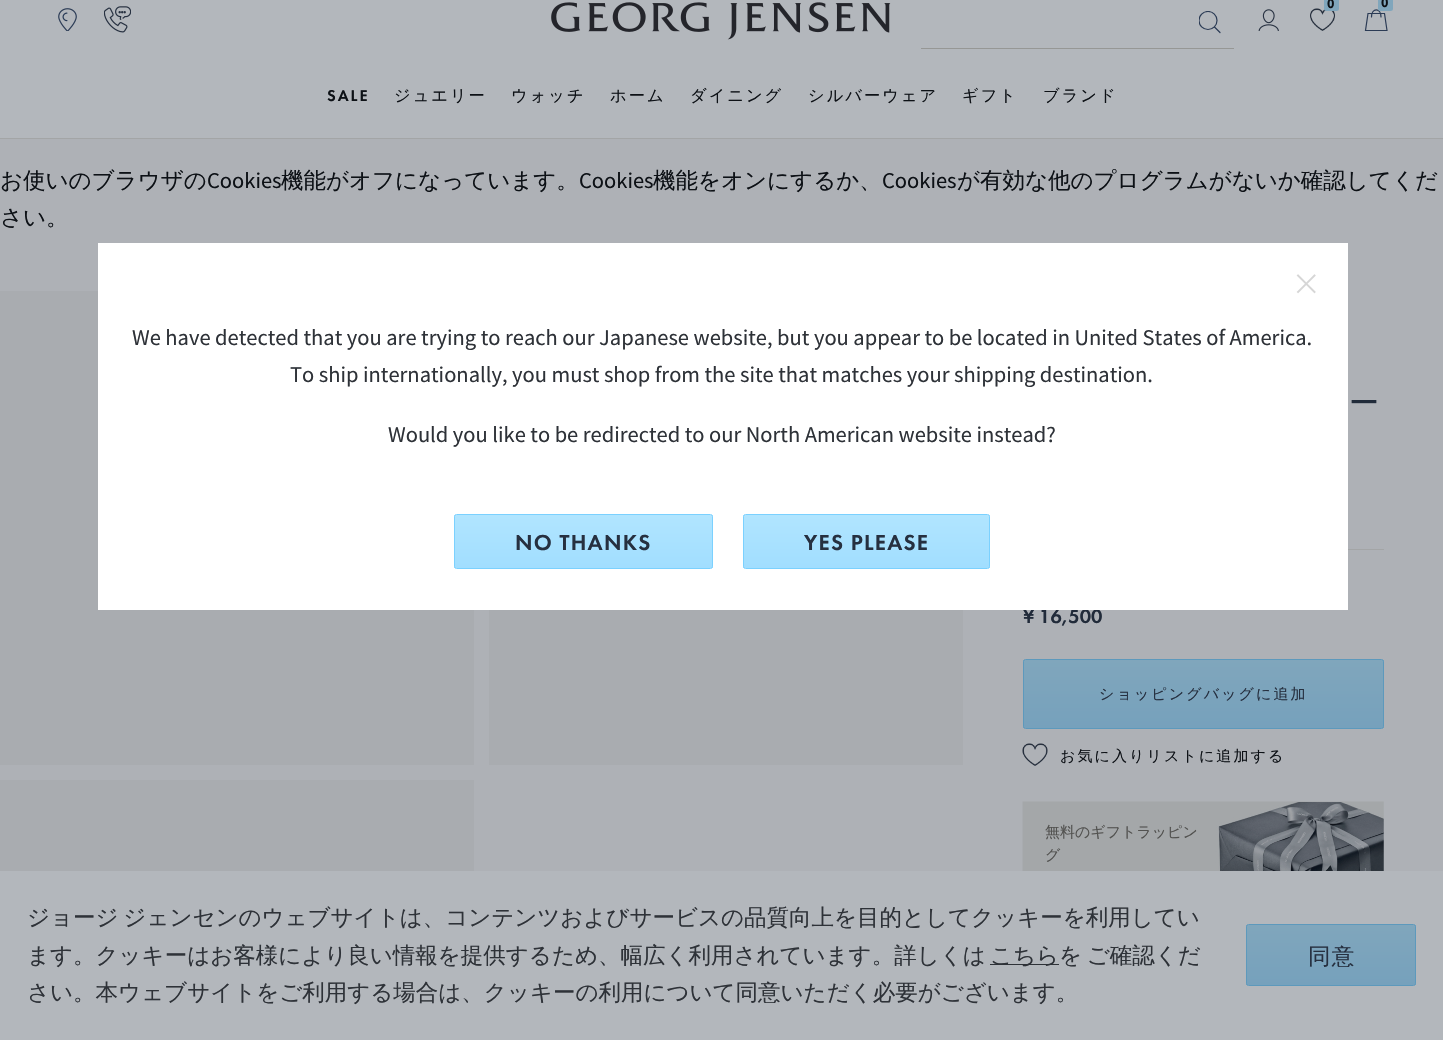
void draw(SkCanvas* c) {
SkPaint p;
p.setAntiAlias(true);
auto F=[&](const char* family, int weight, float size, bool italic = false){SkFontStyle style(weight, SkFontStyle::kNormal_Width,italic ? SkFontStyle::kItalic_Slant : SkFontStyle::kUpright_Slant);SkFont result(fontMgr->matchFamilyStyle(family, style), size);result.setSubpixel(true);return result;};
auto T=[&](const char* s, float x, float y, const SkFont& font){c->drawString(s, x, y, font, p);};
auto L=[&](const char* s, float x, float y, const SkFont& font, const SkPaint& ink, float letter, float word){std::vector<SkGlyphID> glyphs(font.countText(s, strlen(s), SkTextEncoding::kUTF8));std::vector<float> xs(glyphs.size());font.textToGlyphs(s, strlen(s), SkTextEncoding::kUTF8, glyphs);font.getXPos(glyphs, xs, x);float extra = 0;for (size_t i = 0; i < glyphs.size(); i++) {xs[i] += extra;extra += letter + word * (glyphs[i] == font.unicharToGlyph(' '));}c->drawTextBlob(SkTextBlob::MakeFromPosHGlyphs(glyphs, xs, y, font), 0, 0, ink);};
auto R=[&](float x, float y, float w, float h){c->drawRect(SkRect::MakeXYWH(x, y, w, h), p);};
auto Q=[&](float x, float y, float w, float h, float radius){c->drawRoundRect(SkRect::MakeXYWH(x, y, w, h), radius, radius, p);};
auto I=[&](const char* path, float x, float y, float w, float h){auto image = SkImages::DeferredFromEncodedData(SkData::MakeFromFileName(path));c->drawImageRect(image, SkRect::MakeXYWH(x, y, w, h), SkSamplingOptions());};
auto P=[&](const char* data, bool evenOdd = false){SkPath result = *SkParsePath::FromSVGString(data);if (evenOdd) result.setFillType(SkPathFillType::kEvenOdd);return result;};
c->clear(0xffaeb1b6);
p.setColor(0xffb3b7bc);
R(0,0,1443,138);
p.setColor(0xffa3a5a6);
R(0,138,1443,1);
I("1.png",58,8,19,23);
I("2.png",104,6,27,27);
I("3.png",551,2,340,38);
c->save();
c->clipRect(SkRect::MakeXYWH(1199,11,22,23));
p.setStroke(true);
p.setStrokeWidth(1.2);
p.setColor(0xff2b3b55);
c->drawCircle(1208,20.5,9,p);
c->restore();
p.setStrokeCap(SkPaint::kRound_Cap);
c->drawPath(P("M1214.5 27l5.5 5.5"),p);
p.setStroke(false);
p.setColor(0xff969795);
R(921,48,313,1);
I("4.png",1258,9,21,22);
I("5.png",1310,8,25,23);
p.setColor(0xff80a6bc);
Q(1324,-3,15,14,2.5);
auto f1 = F("Source Sans Pro",700,14);
p.setColor(0xff0d1116);
T("0",1327,8,f1);
c->save();
c->clipRect(SkRect::MakeXYWH(1364,9,25,22));
p.setStroke(true);
p.setStrokeCap(SkPaint::kButt_Cap);
p.setColor(0xff2b3b55);
c->drawPath(P("M1368 13.5h16.5l2.5 17h-21.5z"),p);
c->restore();
p.setStrokeCap(SkPaint::kRound_Cap);
c->drawPath(P("M1371.5 17c0-9.5 9.5-9.5 9.5 0"),p);
p.setStroke(false);
p.setColor(0xff80a6bc);
Q(1378,-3,15,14,2.5);
p.setColor(0xff0d1116);
T("0",1381,7,f1);
auto f2 = F("Futura PT",500,16.25);
L("SALE",327,101,f2,p,2,0);
auto f3 = F("WenQuanYi Zen Hei",500,16.25);
L("ジュエリー",394,101,f3,p,2,0);
L("ウォッチ",511,101,f3,p,2,0);
L("ホーム",610,101,f3,p,2,0);
L("ダイニング",690,101,f3,p,2,0);
L("シルバーウェア",808,101,f3,p,2,0);
L("ギフト",962,101,f3,p,2,0);
L("ブランド",1043,101,f3,p,2,0);
auto f4 = F("WenQuanYi Zen Hei",500,22.5);
T("お使いのブラウザの",0,188,f4);
auto f5 = F("Source Sans Pro",400,22.5);
T("Cookies",207,188,f5);
T("機能がオフになっています。",281,188,f4);
T("Cookies",579,188,f5);
T("機能をオンにするか、",653,188,f4);
T("Cookies",882,188,f5);
T("が有効な他のプログラムがないか確認してくだ",957,188,f4);
T("さい。",0,225,f4);
p.setColor(0xffa9acb0);
R(0,291,474,474);
R(489,610,474,155);
R(0,780,474,91);
auto f6 = F("WenQuanYi Zen Hei",500,30);
p.setColor(0xff212b3a);
L("ー",1349,413,f6,p,1,0);
p.setColor(0xffa3a5a6);
R(1348,549,36,1);
auto f7 = F("Futura PT",500,20);
p.setColor(0xff212b3a);
T("¥ 16,500",1023,623,f7);
c->save();
c->clipPath(P("M1025.5 659h356c1.5 0 2.5 1 2.5 2.5v65c0 1.5-1 2.5-2.5 2.5h-356c-1.5 0-2.5-1-2.5-2.5v-65c0-1.5 1-2.5 2.5-2.5z"),true);
{
const SkColor colors[] = {0xff76a1bc,0xff80a6bc};
const float stops[] = {0,1};
const SkPoint ends[] = {{1203,728}, {1203,660}};
p.setShader(SkGradientShader::MakeLinear(ends, colors, stops, 2, SkTileMode::kClamp));
p.setAlpha(255);
}
R(1023,660,361,68);
c->restore();
p.setStroke(true);
p.setStrokeWidth(1);
p.setStrokeCap(SkPaint::kButt_Cap);
p.setShader(nullptr);
p.setColor(0xff5d99bc);
c->drawRoundRect(SkRect::MakeXYWH(1023.5,659.5,360,69),2,2,p);
auto f8 = F("WenQuanYi Zen Hei",500,15);
p.setStroke(false);
p.setColor(0xff263040);
L("ショッピングバッグに追加",1099,699,f8,p,2.1,0);
I("6.png",1022,743,26,23);
p.setColor(0xff0d1116);
L("お気に入りリストに追加する",1060,761,f8,p,2.1,0);
I("7.png",1022,801,362,70);
p.setColor(0xff525250);
T("無料のギフトラッピン",1045,837,f8);
T("グ",1045,860,f8);
p.setColor(0xffffffff);
R(98,243,1250,367);
I("8.png",1296,274,20,20);
p.setColor(0xff2e3238);
T("We have detected that you are trying to reach our Japanese website, but you appear to be located in United States of America.",132,345,f5);
T("To ship internationally, you must shop from the site that matches your shipping destination.",290,382,f5);
T("Would you like to be redirected to our North American website instead?",388,442,f5);
c->save();
c->clipPath(P("M456.5 514h254c1.5 0 2.5 1 2.5 2.5v50c0 1.5-1 2.5-2.5 2.5h-254c-1.5 0-2.5-1-2.5-2.5v-50c0-1.5 1-2.5 2.5-2.5z"),true);
{
const SkColor colors[] = {0xffa1deff,0xffb1e5ff};
const float stops[] = {0,1};
const SkPoint ends[] = {{583,568}, {583,515}};
p.setShader(SkGradientShader::MakeLinear(ends, colors, stops, 2, SkTileMode::kClamp));
p.setAlpha(255);
}
R(454,515,259,53);
c->restore();
p.setStroke(true);
p.setShader(nullptr);
p.setColor(0xff7bd1ff);
c->drawRoundRect(SkRect::MakeXYWH(454.5,514.5,258,54),2,2,p);
auto f9 = F("Futura PT",500,22.5);
p.setStroke(false);
p.setColor(0xff263040);
L("NO THANKS",515,550,f9,p,1.25,0);
c->save();
c->clipPath(P("M745.5 514h242c1.5 0 2.5 1 2.5 2.5v50c0 1.5-1 2.5-2.5 2.5h-242c-1.5 0-2.5-1-2.5-2.5v-50c0-1.5 1-2.5 2.5-2.5z"),true);
{
const SkColor colors[] = {0xffa1deff,0xffb1e5ff};
const float stops[] = {0,1};
const SkPoint ends[] = {{866,568}, {866,515}};
p.setShader(SkGradientShader::MakeLinear(ends, colors, stops, 2, SkTileMode::kClamp));
p.setAlpha(255);
}
R(743,515,247,53);
c->restore();
p.setStroke(true);
p.setShader(nullptr);
p.setColor(0xff7bd1ff);
c->drawRoundRect(SkRect::MakeXYWH(743.5,514.5,246,54),2,2,p);
p.setStroke(false);
p.setColor(0xff263040);
L("YES PLEASE",804,550,f9,p,1.25,0);
p.setColor(0xffb3b7bc);
R(0,871,1443,169);
p.setColor(0xff2e3238);
L("ジョージ ジェンセンのウェブサイトは、コンテンツおよびサービスの品質向上を目的としてクッキーを利用してい",27,925,f4,p,0,-2);
T("ます。クッキーはお客様により良い情報を提供するため、幅広く利用されています。詳しくは",27,963,f4);
R(990,964,69,1);
T("こちら",990,963,f4);
L("を ご確認くだ",1059,963,f4,p,0,-2);
T("さい。本ウェブサイトをご利用する場合は、クッキーの利用について同意いただく必要がございます。",27,1000,f4);
c->save();
c->clipPath(P("M1248.5 924h165c1.5 0 2.5 1 2.5 2.5v57c0 1.5-1 2.5-2.5 2.5h-165c-1.5 0-2.5-1-2.5-2.5v-57c0-1.5 1-2.5 2.5-2.5z"),true);
{
const SkColor colors[] = {0xff76a1bc,0xff80a6bc};
const float stops[] = {0,1};
const SkPoint ends[] = {{1331,985}, {1331,925}};
p.setShader(SkGradientShader::MakeLinear(ends, colors, stops, 2, SkTileMode::kClamp));
p.setAlpha(255);
}
R(1246,925,170,60);
c->restore();
p.setStroke(true);
p.setShader(nullptr);
p.setColor(0xff5d99bc);
c->drawRoundRect(SkRect::MakeXYWH(1246.5,924.5,169,61),2,2,p);
p.setStroke(false);
p.setColor(0xff263040);
L("同意",1308,964,f4,p,1.25,0);
}
